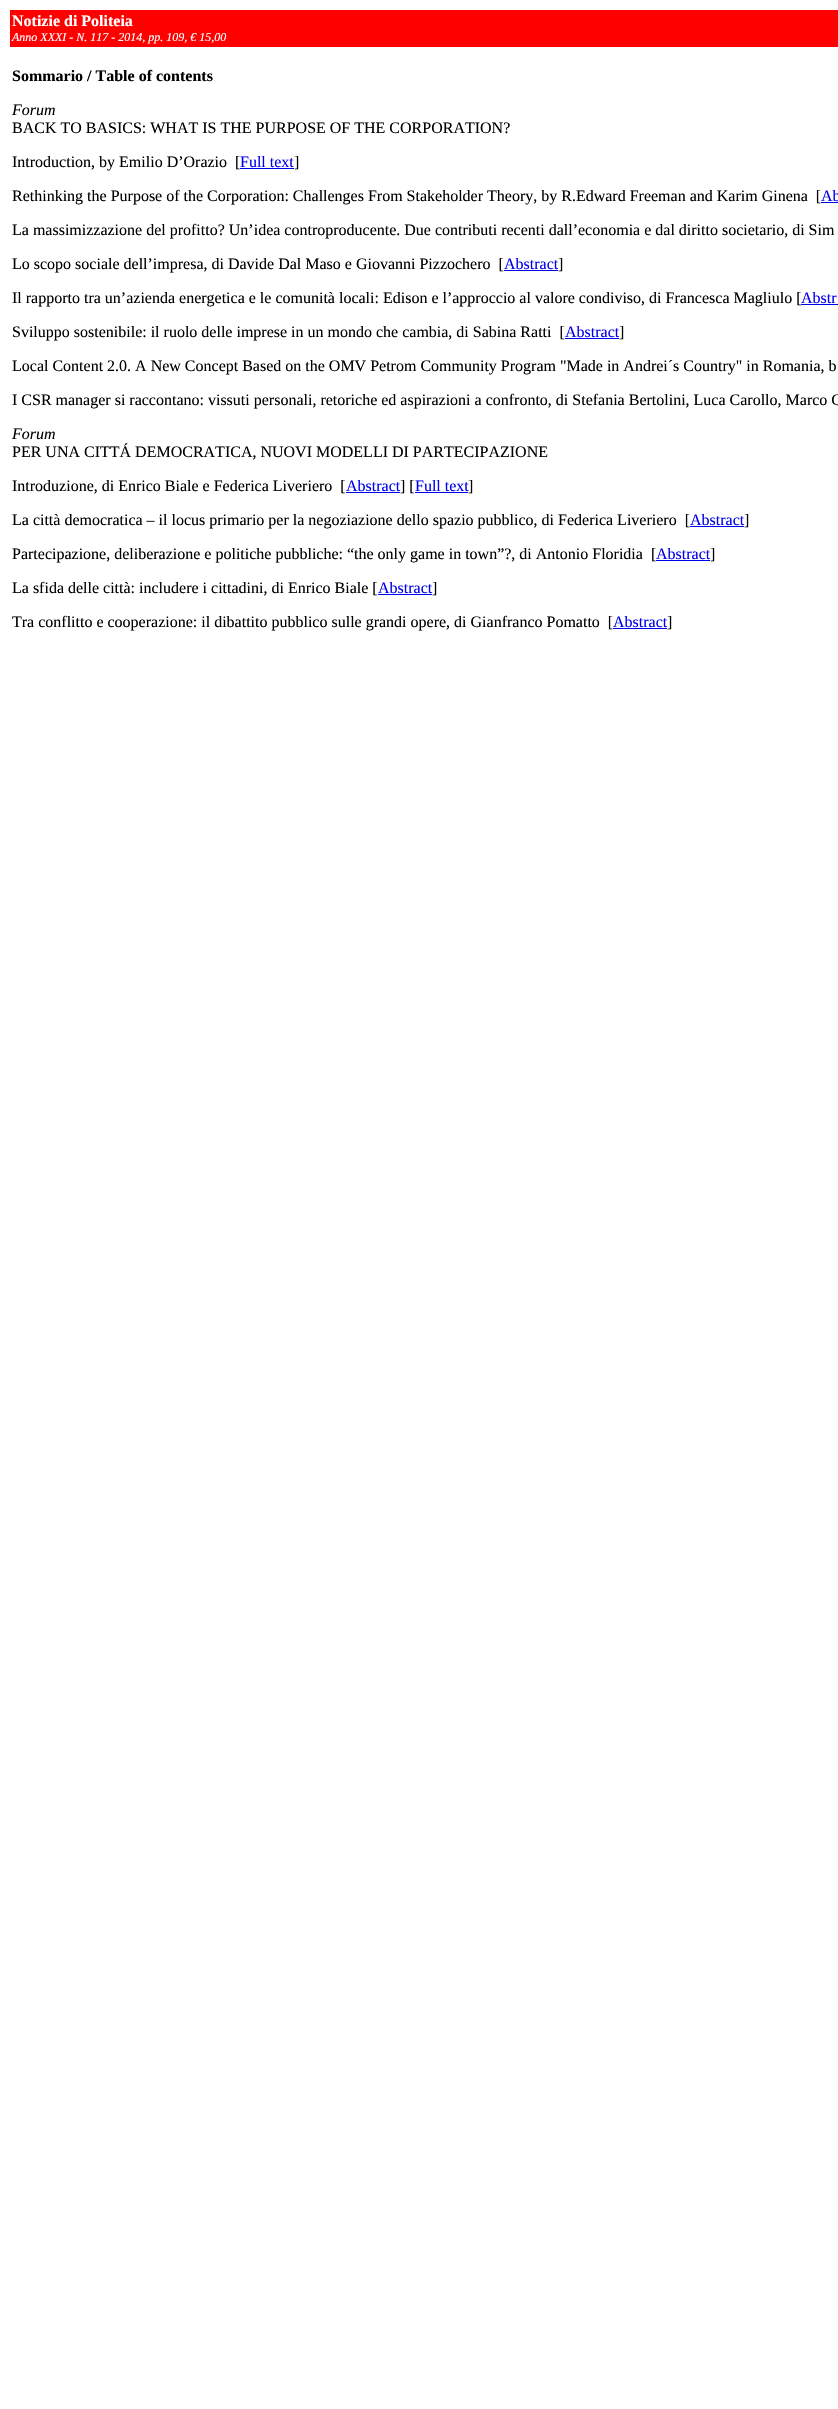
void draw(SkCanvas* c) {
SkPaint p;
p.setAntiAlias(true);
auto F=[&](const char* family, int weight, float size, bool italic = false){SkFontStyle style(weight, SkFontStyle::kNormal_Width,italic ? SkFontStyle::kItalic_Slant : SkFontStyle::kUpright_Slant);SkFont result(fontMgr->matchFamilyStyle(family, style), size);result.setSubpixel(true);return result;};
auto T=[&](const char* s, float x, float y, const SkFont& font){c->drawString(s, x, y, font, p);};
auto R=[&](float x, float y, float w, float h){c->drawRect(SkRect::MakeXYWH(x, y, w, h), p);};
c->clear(0xffffffff);
p.setColor(0xffff0000);
R(10,10,828,37);
auto f1 = F("Liberation Serif",700,16);
p.setColor(0xffffffff);
T("Notizie di Politeia",12,26,f1);
auto f2 = F("Liberation Serif",400,12,true);
T("Anno XXXI - N. 117 - 2014, pp. 109, € 15,00",12,41,f2);
p.setColor(0xff000000);
T("Sommario / Table of contents",12,81,f1);
auto f3 = F("Liberation Serif",400,16,true);
T("Forum",12,115,f3);
auto f4 = F("Liberation Serif",400,16);
T("BACK TO BASICS: WHAT IS THE PURPOSE OF THE CORPORATION?",12,133,f4);
T("Introduction, by Emilio D’Orazio  [",12,167,f4);
p.setColor(0xff0000ee);
T("Full text",240,167,f4);
R(240,168,54,1);
p.setColor(0xff000000);
T("]",294,167,f4);
T("Rethinking the Purpose of the Corporation: Challenges From Stakeholder Theory, by R.Edward Freeman and Karim Ginena  [",12,201,f4);
p.setColor(0xff0000ee);
T("Ab",821,201,f4);
R(821,202,17,1);
p.setColor(0xff000000);
T("La massimizzazione del profitto? Un’idea controproducente. Due contributi recenti dall’economia e dal diritto societario, di Sim",12,235,f4);
T("Lo scopo sociale dell’impresa, di Davide Dal Maso e Giovanni Pizzochero  [",12,269,f4);
p.setColor(0xff0000ee);
T("Abstract",504,269,f4);
R(504,270,54,1);
p.setColor(0xff000000);
T("]",558,269,f4);
T("Il rapporto tra un’azienda energetica e le comunità locali: Edison e l’approccio al valore condiviso, di Francesca Magliulo [",12,303,f4);
p.setColor(0xff0000ee);
T("Abstr",801,303,f4);
R(801,304,37,1);
p.setColor(0xff000000);
T("Sviluppo sostenibile: il ruolo delle imprese in un mondo che cambia, di Sabina Ratti  [",12,337,f4);
p.setColor(0xff0000ee);
T("Abstract",565,337,f4);
R(565,338,54,1);
p.setColor(0xff000000);
T("]",619,337,f4);
T("Local Content 2.0. A New Concept Based on the OMV Petrom Community Program \"Made in Andrei´s Country\" in Romania, b",12,371,f4);
T("I CSR manager si raccontano: vissuti personali, retoriche ed aspirazioni a confronto, di Stefania Bertolini, Luca Carollo, Marco G",12,405,f4);
T("Forum",12,439,f3);
T("PER UNA CITTÁ DEMOCRATICA, NUOVI MODELLI DI PARTECIPAZIONE",12,457,f4);
T("Introduzione, di Enrico Biale e Federica Liveriero  [",12,491,f4);
p.setColor(0xff0000ee);
T("Abstract",346,491,f4);
R(346,492,54,1);
p.setColor(0xff000000);
T("] [",400,491,f4);
p.setColor(0xff0000ee);
T("Full text",415,491,f4);
R(415,492,53,1);
p.setColor(0xff000000);
T("]",468,491,f4);
T("La città democratica – il locus primario per la negoziazione dello spazio pubblico, di Federica Liveriero  [",12,525,f4);
p.setColor(0xff0000ee);
T("Abstract",690,525,f4);
R(690,526,54,1);
p.setColor(0xff000000);
T("]",744,525,f4);
T("Partecipazione, deliberazione e politiche pubbliche: “the only game in town”?, di Antonio Floridia  [",12,559,f4);
p.setColor(0xff0000ee);
T("Abstract",656,559,f4);
R(656,560,54,1);
p.setColor(0xff000000);
T("]",710,559,f4);
T("La sfida delle città: includere i cittadini, di Enrico Biale [",12,593,f4);
p.setColor(0xff0000ee);
T("Abstract",378,593,f4);
R(378,594,54,1);
p.setColor(0xff000000);
T("]",432,593,f4);
T("Tra conflitto e cooperazione: il dibattito pubblico sulle grandi opere, di Gianfranco Pomatto  [",12,627,f4);
p.setColor(0xff0000ee);
T("Abstract",613,627,f4);
R(613,628,54,1);
p.setColor(0xff000000);
T("]",667,627,f4);
}
